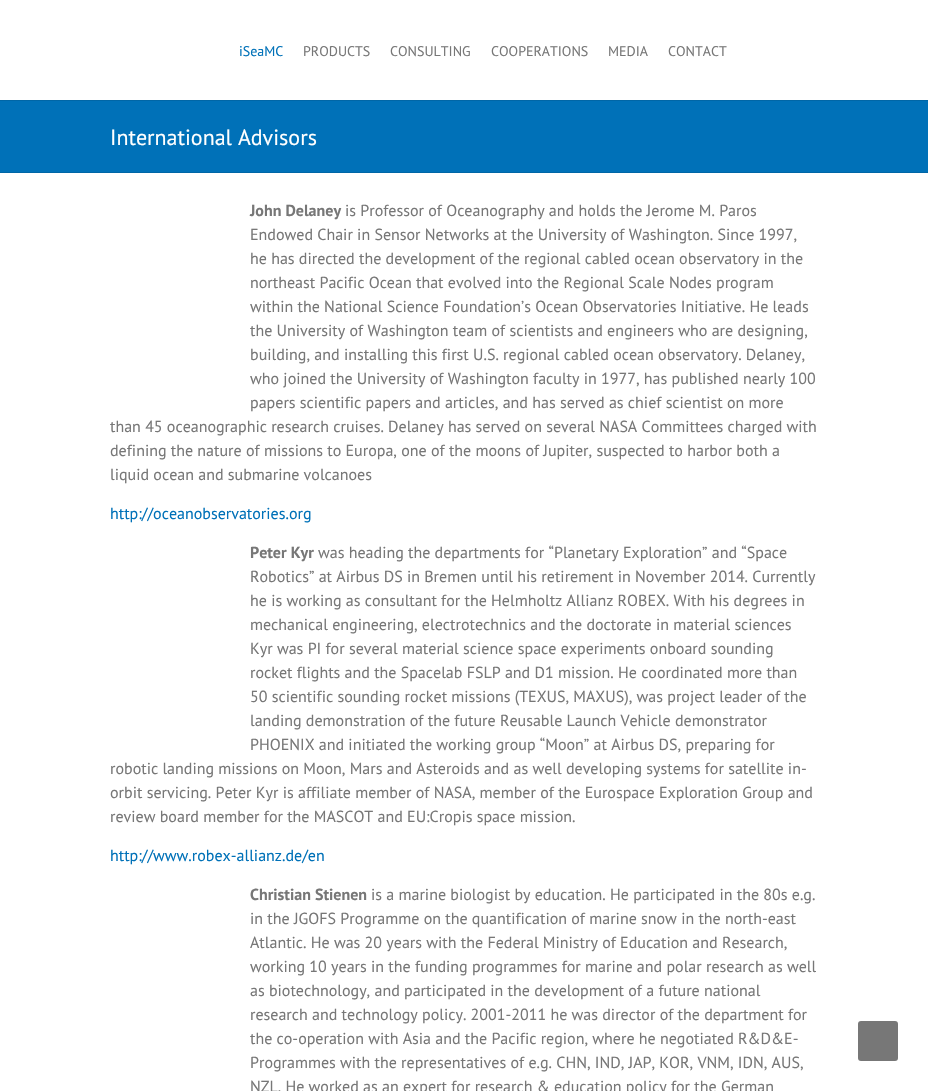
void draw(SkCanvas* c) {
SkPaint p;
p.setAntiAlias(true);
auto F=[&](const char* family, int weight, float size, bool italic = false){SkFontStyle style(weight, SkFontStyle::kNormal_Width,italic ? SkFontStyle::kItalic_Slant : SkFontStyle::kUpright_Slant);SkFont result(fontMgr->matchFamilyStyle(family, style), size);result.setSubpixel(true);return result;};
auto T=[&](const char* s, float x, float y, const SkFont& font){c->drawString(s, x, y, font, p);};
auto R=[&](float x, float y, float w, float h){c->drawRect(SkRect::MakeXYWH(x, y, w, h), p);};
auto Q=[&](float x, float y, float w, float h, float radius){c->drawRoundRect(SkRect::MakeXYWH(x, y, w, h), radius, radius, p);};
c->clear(0xffffffff);
auto f1 = F("PT Sans",400,14);
p.setColor(0xff0071b8);
T("iSeaMC",239,56,f1);
p.setColor(0xff777777);
T("PRODUCTS",303,56,f1);
T("CONSULTING",390,56,f1);
T("COOPERATIONS",491,56,f1);
T("MEDIA",608,56,f1);
T("CONTACT",668,56,f1);
p.setColor(0xff0071b8);
R(0,101,928,71);
p.setColor(0xff0066a6);
R(0,100,928,1);
R(0,172,928,1);
auto f2 = F("PT Sans",400,22);
p.setColor(0xffffffff);
T("International Advisors",110,145,f2);
auto f3 = F("PT Sans",700,16);
p.setColor(0xff777777);
T("John Delaney",250,216,f3);
auto f4 = F("PT Sans",400,16);
T("is Professor of Oceanography and holds the Jerome M. Paros",345,216,f4);
T("Endowed Chair in Sensor Networks at the University of Washington. Since 1997,",250,240,f4);
T("he has directed the development of the regional cabled ocean observatory in the",250,264,f4);
T("northeast Pacific Ocean that evolved into the Regional Scale Nodes program",250,288,f4);
T("within the National Science Foundation’s Ocean Observatories Initiative. He leads",250,312,f4);
T("the University of Washington team of scientists and engineers who are designing,",250,336,f4);
T("building, and installing this first U.S. regional cabled ocean observatory. Delaney,",250,360,f4);
T("who joined the University of Washington faculty in 1977, has published nearly 100",250,384,f4);
T("papers scientific papers and articles, and has served as chief scientist on more",250,408,f4);
T("than 45 oceanographic research cruises. Delaney has served on several NASA Committees charged with",110,432,f4);
T("defining the nature of missions to Europa, one of the moons of Jupiter, suspected to harbor both a",110,456,f4);
T("liquid ocean and submarine volcanoes",110,480,f4);
p.setColor(0xff0071b8);
T("http://oceanobservatories.org",110,519,f4);
p.setColor(0xff777777);
T("Peter Kyr",250,558,f3);
T("was heading the departments for “Planetary Exploration” and “Space",318,558,f4);
T("Robotics” at Airbus DS in Bremen until his retirement in November 2014. Currently",250,582,f4);
T("he is working as consultant for the Helmholtz Allianz ROBEX. With his degrees in",250,606,f4);
T("mechanical engineering, electrotechnics and the doctorate in material sciences",250,630,f4);
T("Kyr was PI for several material science space experiments onboard sounding",250,654,f4);
T("rocket flights and the Spacelab FSLP and D1 mission. He coordinated more than",250,678,f4);
T("50 scientific sounding rocket missions (TEXUS, MAXUS), was project leader of the",250,702,f4);
T("landing demonstration of the future Reusable Launch Vehicle demonstrator",250,726,f4);
T("PHOENIX and initiated the working group “Moon” at Airbus DS, preparing for",250,750,f4);
T("robotic landing missions on Moon, Mars and Asteroids and as well developing systems for satellite in-",110,774,f4);
T("orbit servicing. Peter Kyr is affiliate member of NASA, member of the Eurospace Exploration Group and",110,798,f4);
T("review board member for the MASCOT and EU:Cropis space mission.",110,822,f4);
p.setColor(0xff0071b8);
T("http://www.robex-allianz.de/en",110,861,f4);
p.setColor(0xff777777);
T("Christian Stienen",250,900,f3);
T("is a marine biologist by education. He participated in the 80s e.g.",371,900,f4);
T("in the JGOFS Programme on the quantification of marine snow in the north-east",250,924,f4);
T("Atlantic. He was 20 years with the Federal Ministry of Education and Research,",250,948,f4);
T("working 10 years in the funding programmes for marine and polar research as well",250,972,f4);
T("as biotechnology, and participated in the development of a future national",250,996,f4);
T("research and technology policy. 2001-2011 he was director of the department for",250,1020,f4);
T("the co-operation with Asia and the Pacific region, where he negotiated R&D&E-",250,1044,f4);
T("Programmes with the representatives of e.g. CHN, IND, JAP, KOR, VNM, IDN, AUS,",250,1068,f4);
T("NZL. He worked as an expert for research & education policy for the German",250,1092,f4);
Q(858,1021,40,40,3);
}
